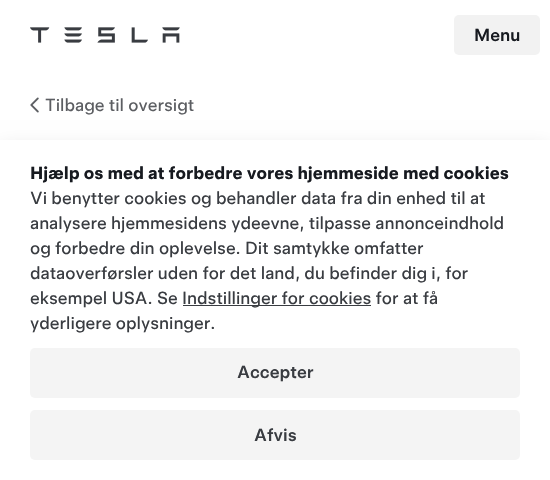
void draw(SkCanvas* c) {
SkPaint p;
p.setAntiAlias(true);
auto F=[&](const char* family, int weight, float size, bool italic = false){SkFontStyle style(weight, SkFontStyle::kNormal_Width,italic ? SkFontStyle::kItalic_Slant : SkFontStyle::kUpright_Slant);SkFont result(fontMgr->matchFamilyStyle(family, style), size);result.setSubpixel(true);return result;};
auto T=[&](const char* s, float x, float y, const SkFont& font){c->drawString(s, x, y, font, p);};
auto R=[&](float x, float y, float w, float h){c->drawRect(SkRect::MakeXYWH(x, y, w, h), p);};
auto Q=[&](float x, float y, float w, float h, float radius){c->drawRoundRect(SkRect::MakeXYWH(x, y, w, h), radius, radius, p);};
auto I=[&](const char* path, float x, float y, float w, float h){auto image = SkImages::DeferredFromEncodedData(SkData::MakeFromFileName(path));c->drawImageRect(image, SkRect::MakeXYWH(x, y, w, h), SkSamplingOptions());};
c->clear(0xffffffff);
I("1.png",30,27,150,16);
p.setColor(0xfff2f2f2);
Q(454,15,86,40,5);
auto f1 = F("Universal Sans",500,17.5);
p.setColor(0xff171a20);
T("Menu",474,41,f1);
I("2.png",30,97,9,16);
auto f2 = F("Universal Sans",400,17.5);
p.setColor(0xff5c5e62);
T("Tilbage til oversigt",45,111,f2);
p.setColor(0x29000000);
p.setMaskFilter(SkMaskFilter::MakeBlur(kNormal_SkBlurStyle, 10));
c->drawRect(SkRect::MakeXYWH(0,150,550,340),p);
p.setMaskFilter(nullptr);
p.setColor(0xffffffff);
R(0,140,550,340);
auto f3 = F("Universal Sans",700,17.5);
p.setColor(0xff171a20);
T("Hjælp os med at forbedre vores hjemmeside med cookies",30,179,f3);
p.setColor(0xff393c41);
T("Vi benytter cookies og behandler data fra din enhed til at",30,204,f2);
T("analysere hjemmesidens ydeevne, tilpasse annonceindhold",30,229,f2);
T("og forbedre din oplevelse. Dit samtykke omfatter",30,254,f2);
T("dataoverførsler uden for det land, du befinder dig i, for",30,279,f2);
T("eksempel USA. Se",30,304,f2);
R(183,305,188,1);
T("Indstillinger for cookies for at få",182,304,f2);
T("yderligere oplysninger.",30,329,f2);
p.setColor(0xfff4f4f4);
Q(30,348,490,50,5);
p.setColor(0xff393c41);
T("Accepter",237,378,f1);
p.setColor(0xfff4f4f4);
Q(30,410,490,50,5);
p.setColor(0xff393c41);
T("Afvis",254,441,f1);
}
